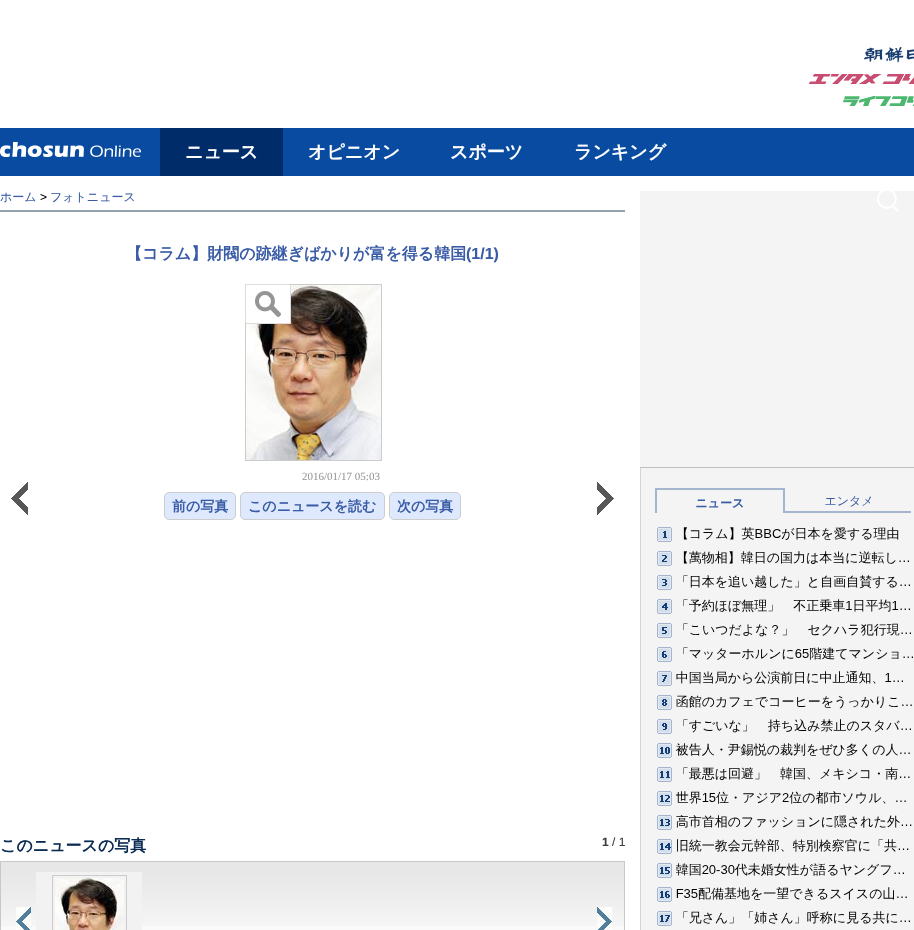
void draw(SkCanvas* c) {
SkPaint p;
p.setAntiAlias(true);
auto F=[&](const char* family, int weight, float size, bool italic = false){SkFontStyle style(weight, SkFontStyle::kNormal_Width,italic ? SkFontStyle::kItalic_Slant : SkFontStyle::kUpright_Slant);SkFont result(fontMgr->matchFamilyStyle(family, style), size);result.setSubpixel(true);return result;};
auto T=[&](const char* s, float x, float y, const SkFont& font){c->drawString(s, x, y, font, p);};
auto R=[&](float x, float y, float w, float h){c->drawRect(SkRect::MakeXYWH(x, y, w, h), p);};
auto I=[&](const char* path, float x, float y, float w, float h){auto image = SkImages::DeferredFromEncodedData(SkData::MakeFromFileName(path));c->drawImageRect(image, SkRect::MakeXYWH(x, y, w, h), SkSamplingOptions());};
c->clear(0xffffffff);
I("1.png",864,47,50,16);
I("2.png",809,74,105,10);
I("3.png",843,96,71,10);
p.setColor(0xff084ba0);
R(0,128,914,48);
I("4.png",0,142,141,15);
p.setColor(0xff002c69);
R(160,128,123,48);
auto f1 = F("WenQuanYi Zen Hei",700,18);
p.setColor(0xffffffff);
T("ニュース",185,158,f1);
T("オピニオン",308,158,f1);
T("スポーツ",450,158,f1);
T("ランキング",574,158,f1);
p.setColor(0xfff4f4f4);
R(640,191,274,276);
I("5.png",877,191,22,21);
p.setColor(0xff95a1af);
R(0,210,625,2);
auto f2 = F("WenQuanYi Zen Hei",500,12);
p.setColor(0xff3a5ca6);
T("ホーム",0,201,f2);
auto f3 = F("Liberation Sans",400,12);
p.setColor(0xff000000);
T(">",40,201,f3);
p.setColor(0xff3a5ca6);
T("フォトニュース",50,201,f2);
auto f4 = F("WenQuanYi Zen Hei",700,16);
T("【コラム】財閥の跡継ぎばかりが富を得る韓国",126,259,f4);
auto f5 = F("Liberation Sans",700,16);
T("(1/1)",466,259,f5);
p.setStroke(true);
p.setStrokeWidth(1);
p.setColor(0xffcccccc);
c->drawRect(SkRect::MakeXYWH(245.5,284.5,136,176),p);
I("7.png",246,285,135,175);
I("6.png",245,284,46,40);
auto f6 = F("Liberation Serif",400,11);
p.setStroke(false);
p.setColor(0xff999999);
T("2016/01/17 05:03",302,480,f6);
I("8.png",11,482,17,33);
I("9.png",597,482,17,33);
p.setColor(0xffdfe9fd);
c->drawRoundRect(SkRect::MakeXYWH(164.5,492.5,71,27),4.5,4.5,p);
p.setStroke(true);
p.setColor(0xffcccccc);
c->drawRoundRect(SkRect::MakeXYWH(164.5,492.5,71,27),4.5,4.5,p);
auto f7 = F("WenQuanYi Zen Hei",700,14);
p.setStroke(false);
p.setColor(0xff3a5ca6);
T("前の写真",172,511,f7);
p.setColor(0xffdfe9fd);
c->drawRoundRect(SkRect::MakeXYWH(240.5,492.5,144,27),4.5,4.5,p);
p.setStroke(true);
p.setColor(0xffcccccc);
c->drawRoundRect(SkRect::MakeXYWH(240.5,492.5,144,27),4.5,4.5,p);
p.setStroke(false);
p.setColor(0xff3a5ca6);
T("このニュースを読む",248,511,f7);
p.setColor(0xffdfe9fd);
c->drawRoundRect(SkRect::MakeXYWH(389.5,492.5,71,27),4.5,4.5,p);
p.setStroke(true);
p.setColor(0xffcccccc);
c->drawRoundRect(SkRect::MakeXYWH(389.5,492.5,71,27),4.5,4.5,p);
p.setStroke(false);
p.setColor(0xff3a5ca6);
T("次の写真",397,511,f7);
p.setColor(0xff0c2c54);
T("このニュースの写真",0,851,f4);
auto f8 = F("Liberation Sans",700,12);
p.setColor(0xff3c3c3c);
T("1",602,846,f8);
T("/ 1",612,846,f3);
p.setColor(0xfffafafa);
R(1,926,623,4);
I("10.png",1,862,623,64);
p.setStroke(true);
p.setColor(0xffc8c8c8);
c->drawRect(SkRect::MakeXYWH(.5,861.5,624,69),p);
I("11.png",16,907,15,23);
p.setStroke(false);
p.setColor(0xfff2f2f2);
R(36,872,106,58);
p.setStroke(true);
p.setColor(0xffcccccc);
c->drawRect(SkRect::MakeXYWH(52.5,875.5,74,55),p);
I("12.png",55,878,69,52);
I("13.png",597,907,15,23);
I("14.png",640,467,274,463);
}
